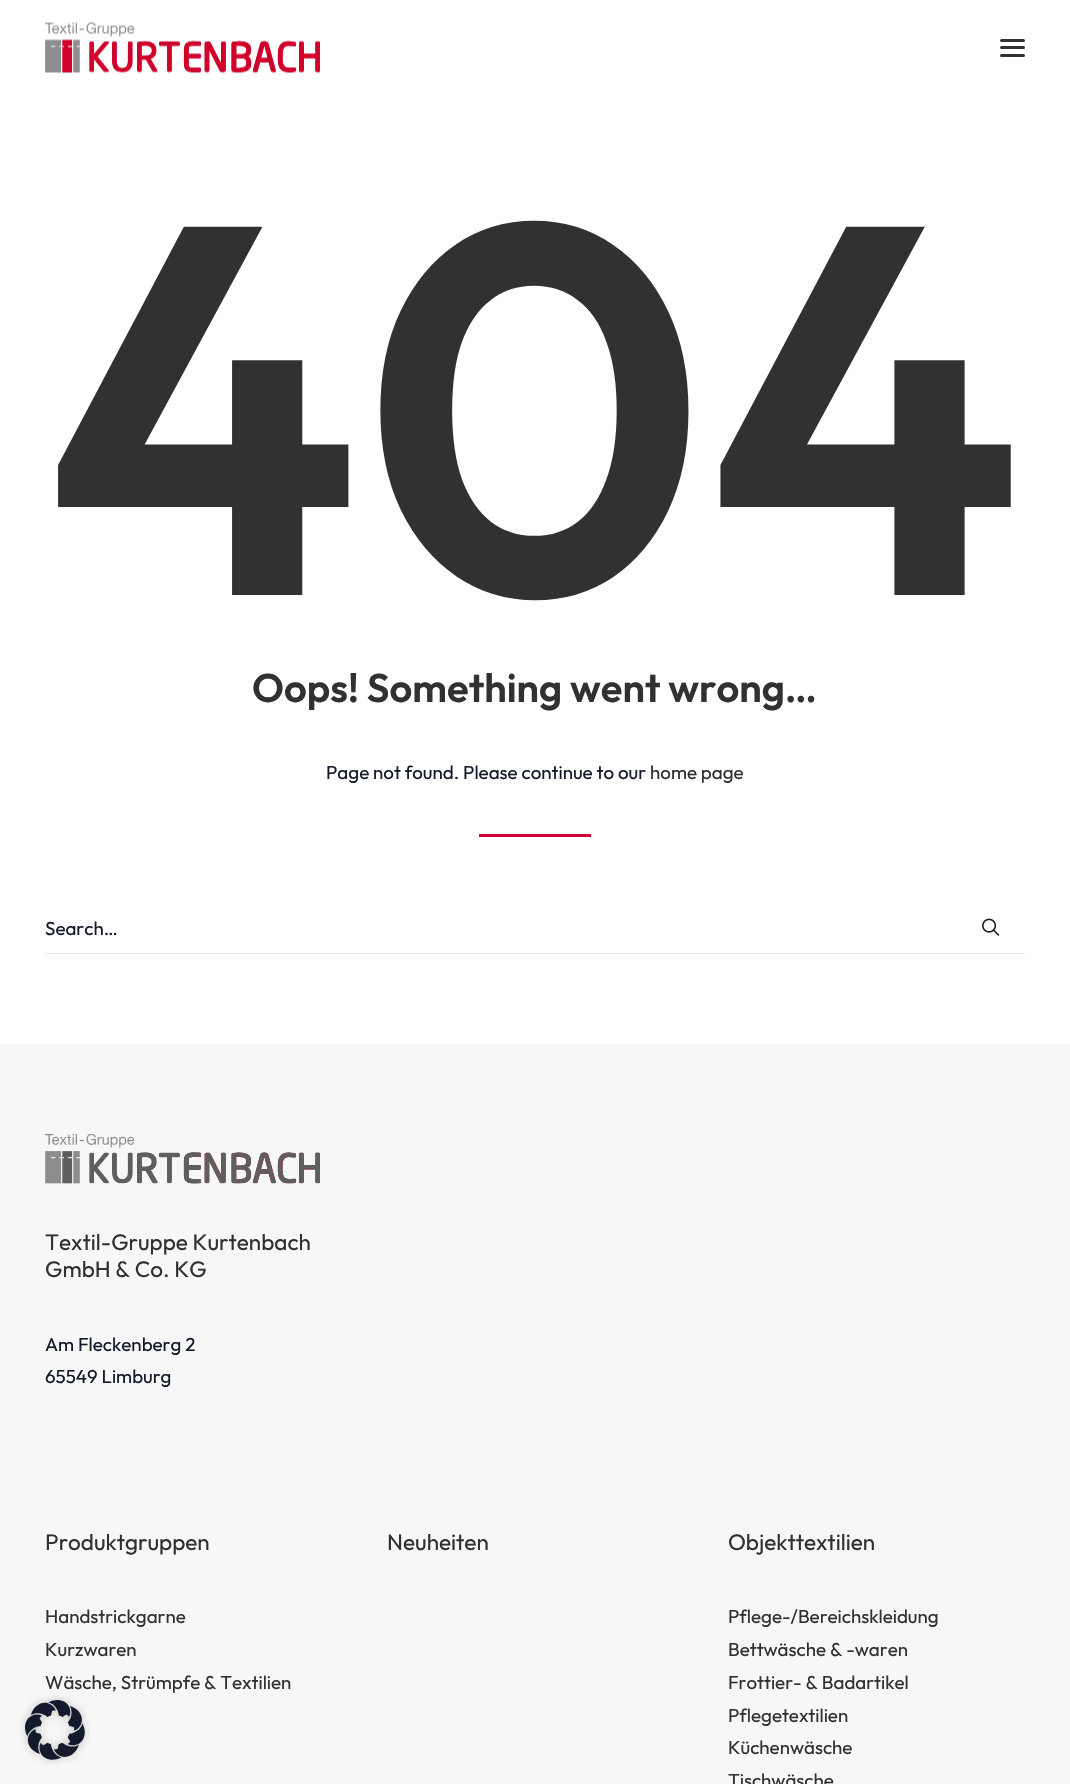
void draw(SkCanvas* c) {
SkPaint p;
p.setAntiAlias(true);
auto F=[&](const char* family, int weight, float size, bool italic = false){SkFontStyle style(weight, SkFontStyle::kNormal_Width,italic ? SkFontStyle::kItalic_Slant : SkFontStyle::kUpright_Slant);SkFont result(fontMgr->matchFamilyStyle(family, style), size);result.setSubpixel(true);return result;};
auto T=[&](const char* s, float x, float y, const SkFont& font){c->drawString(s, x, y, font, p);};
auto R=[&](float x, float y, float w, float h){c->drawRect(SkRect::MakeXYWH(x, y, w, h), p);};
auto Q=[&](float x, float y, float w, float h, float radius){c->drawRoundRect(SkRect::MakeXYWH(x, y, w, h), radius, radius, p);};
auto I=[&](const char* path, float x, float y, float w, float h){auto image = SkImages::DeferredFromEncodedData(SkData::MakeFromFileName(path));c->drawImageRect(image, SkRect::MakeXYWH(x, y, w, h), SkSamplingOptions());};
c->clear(0xfff7f7f7);
p.setColor(0xffffffff);
R(0,0,1070,1044);
I("1.png",45,22,275,51);
p.setColor(0xff303133);
Q(1000,46,25,3,1.5);
Q(1000,39,25,3,1.5);
Q(1000,54,25,3,1.5);
auto f1 = F("Outfit",600,524);
T("404",45,595,f1);
auto f2 = F("Outfit",600,40);
T("Oops! Something went wrong…",252,702,f2);
auto f3 = F("Outfit",400,18.75);
p.setColor(0xff141a2b);
T("Page not found. Please continue to our",326,779,f3);
p.setColor(0xff303133);
T("home page",650,779,f3);
p.setColor(0xffd1002c);
R(479,834,112,3);
p.setColor(0xffeaeaea);
R(45,953,980,1);
p.setColor(0xff141a2b);
T("Search…",45,935,f3);
I("2.png",982,918,18,18);
I("3.png",45,1134,275,50);
auto f4 = F("Outfit",400,22.5);
p.setColor(0xff303133);
T("Textil-Gruppe Kurtenbach",45,1250,f4);
T("GmbH & Co. KG",45,1277,f4);
p.setColor(0xff141a2b);
T("Am Fleckenberg 2",45,1351,f3);
T("65549 Limburg",45,1383,f3);
p.setColor(0xff303133);
T("Produktgruppen",45,1550,f4);
T("Handstrickgarne",45,1623,f3);
T("Kurzwaren",45,1656,f3);
T("Wäsche, Strümpfe & Textilien",45,1689,f3);
T("Neuheiten",387,1550,f4);
T("Objekttextilien",728,1550,f4);
T("Pflege-/Bereichskleidung",728,1623,f3);
T("Bettwäsche & -waren",728,1656,f3);
T("Frottier- & Badartikel",728,1689,f3);
T("Pflegetextilien",728,1722,f3);
T("Küchenwäsche",728,1754,f3);
T("Tischwäsche",728,1787,f3);
I("4.png",20,1695,70,70);
}
